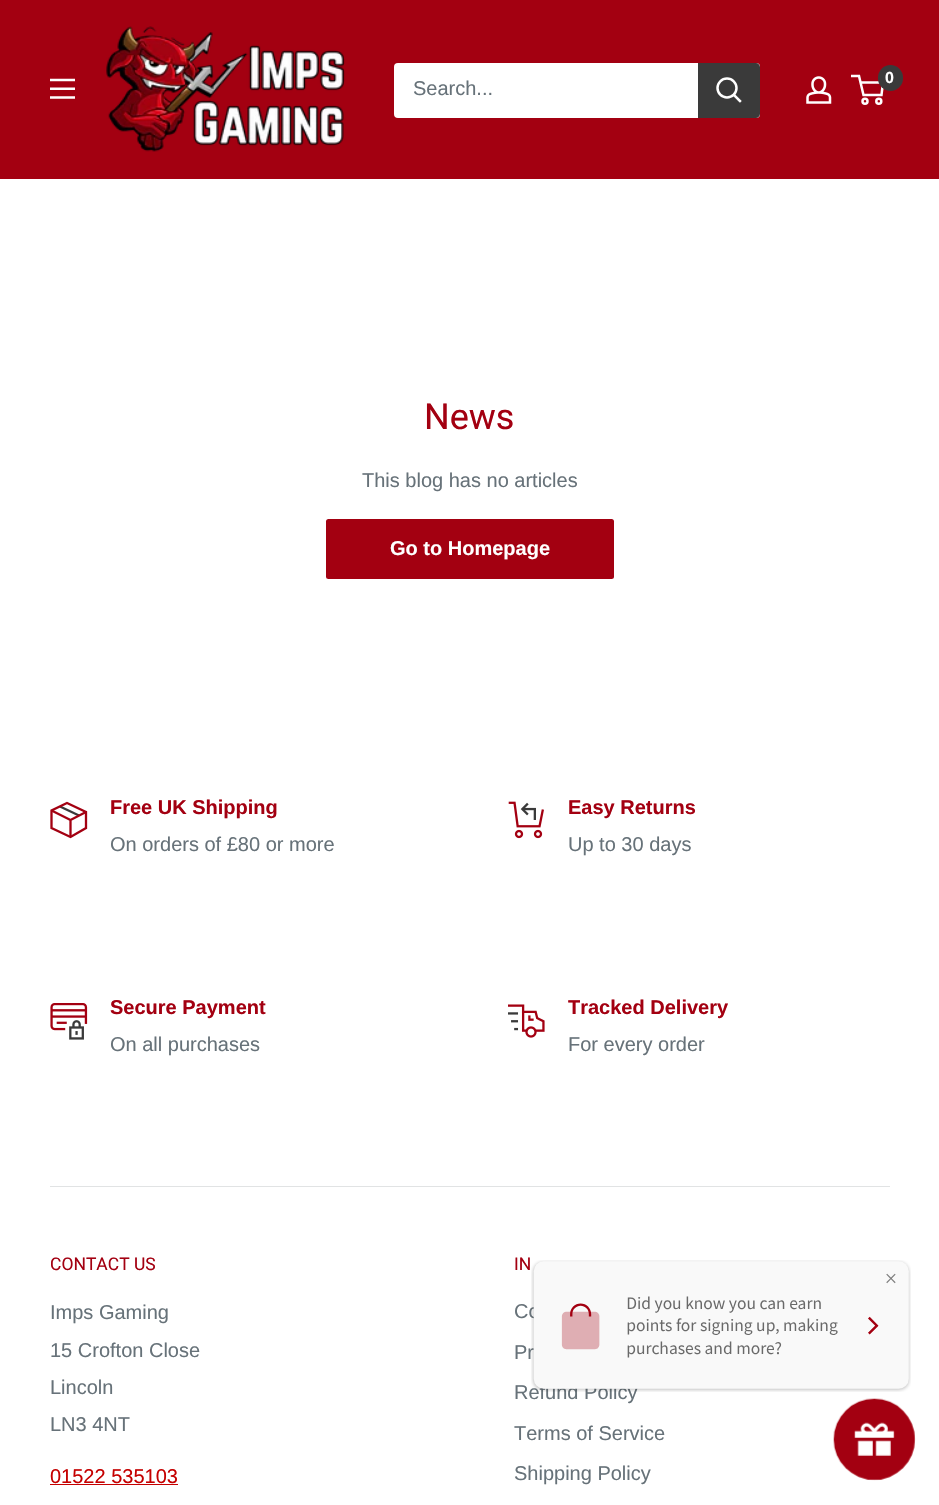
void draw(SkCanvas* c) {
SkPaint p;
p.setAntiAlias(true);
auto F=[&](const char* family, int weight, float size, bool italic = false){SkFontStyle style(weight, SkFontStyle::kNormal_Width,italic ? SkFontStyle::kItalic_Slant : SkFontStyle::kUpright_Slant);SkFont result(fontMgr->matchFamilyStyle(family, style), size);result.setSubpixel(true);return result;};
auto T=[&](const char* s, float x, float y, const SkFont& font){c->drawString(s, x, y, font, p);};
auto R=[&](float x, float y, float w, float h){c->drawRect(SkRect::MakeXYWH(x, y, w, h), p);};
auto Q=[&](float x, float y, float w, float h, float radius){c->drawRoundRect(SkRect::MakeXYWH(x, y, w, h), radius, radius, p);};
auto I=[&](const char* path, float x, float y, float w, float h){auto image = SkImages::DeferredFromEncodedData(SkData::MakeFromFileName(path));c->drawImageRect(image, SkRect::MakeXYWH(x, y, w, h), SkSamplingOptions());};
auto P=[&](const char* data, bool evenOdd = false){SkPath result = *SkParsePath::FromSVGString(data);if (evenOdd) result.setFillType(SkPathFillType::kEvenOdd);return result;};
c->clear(0xffffffff);
p.setColor(0xffa30011);
R(0,0,939,179);
I("1.png",50,78,25,21);
I("2.png",106,26,239,126);
p.setColor(0xffffffff);
Q(394,63,366,55,4);
auto f1 = F("Liberation Sans",400,20);
p.setColor(0xff677279);
T("Search...",413,95,f1);
p.setColor(0xff3a3a3a);
c->drawPath(P("M698 63h58c2 0 4 2 4 4v47c0 2-2 4-4 4h-58z"),p);
p.setStroke(true);
p.setStrokeWidth(2.5);
p.setStrokeCap(SkPaint::kSquare_Cap);
p.setColor(0xffffffff);
c->drawPath(P("M740 101l-6-6"),p);
p.setStrokeCap(SkPaint::kButt_Cap);
c->drawCircle(727,88,9.5,p);
I("3.png",806,76,26,28);
c->drawCircle(865,101.2,2.5,p);
c->drawCircle(878.8,101.2,2.5,p);
c->drawPath(P("M860.5 82.5h22.5l-1.5 12.5h-18l-4.5-19h-8"),p);
p.setStroke(false);
p.setColor(0xff3a3a3a);
Q(878,65,25,26,12.5);
auto f2 = F("Liberation Sans",700,16);
p.setColor(0xffffffff);
T("0",885,83,f2);
auto f3 = F("Roboto",400,36);
p.setColor(0xffa30011);
T("News",424,429,f3);
p.setColor(0xff677279);
T("This blog has no articles",362,487,f1);
p.setColor(0xffa30011);
Q(326,519,288,60,2.5);
auto f4 = F("Liberation Sans",700,20);
p.setColor(0xffffffff);
T("Go to Homepage",390,555,f4);
p.setStroke(true);
p.setStrokeWidth(2.3);
p.setColor(0xff3a3a3a);
c->drawPath(P("M60 806.5l19 9"),p);
p.setColor(0xffa30011);
c->drawPath(P("M86 812l-15.5 8l-19-9.5m19 9.5v17"),p);
p.setStrokeCap(SkPaint::kSquare_Cap);
c->drawPath(P("M86 812v16l-15.5 9l-19-9v-17.5l15.5-7.5z"),p);
p.setStroke(false);
T("Free UK Shipping",110,814,f4);
p.setColor(0xff677279);
T("On orders of £80 or more",110,851,f1);
I("4.png",508,801,36,38);
p.setColor(0xffa30011);
T("Easy Returns",568,814,f4);
p.setColor(0xff677279);
T("Up to 30 days",568,851,f1);
I("5.png",50,1003,38,37);
p.setColor(0xffa30011);
T("Secure Payment",110,1014,f4);
p.setColor(0xff677279);
T("On all purchases",110,1051,f1);
I("6.png",508,1004,37,34);
p.setColor(0xffa30011);
T("Tracked Delivery",568,1014,f4);
p.setColor(0xff677279);
T("For every order",568,1051,f1);
p.setColor(0xffe1e3e4);
R(50,1186,840,1);
auto f5 = F("Roboto",400,17.5);
p.setColor(0xffa30011);
T("CONTACT US",50,1270,f5);
p.setColor(0xff677279);
T("Imps Gaming",50,1319,f1);
T("15 Crofton Close",50,1357,f1);
T("Lincoln",50,1394,f1);
T("LN3 4NT",50,1431,f1);
p.setColor(0xffc50000);
T("01522 535103",50,1483,f1);
R(50,1484,128,1);
p.setColor(0xffa30011);
T("IN",514,1270,f5);
p.setColor(0xff677279);
T("Co",514,1318,f1);
T("Pr",514,1359,f1);
T("Refund Policy",514,1399,f1);
T("Terms of Service",514,1440,f1);
T("Shipping Policy",514,1480,f1);
I("7.png",531,1260,380,132);
I("8.png",833,1398,83,83);
}
